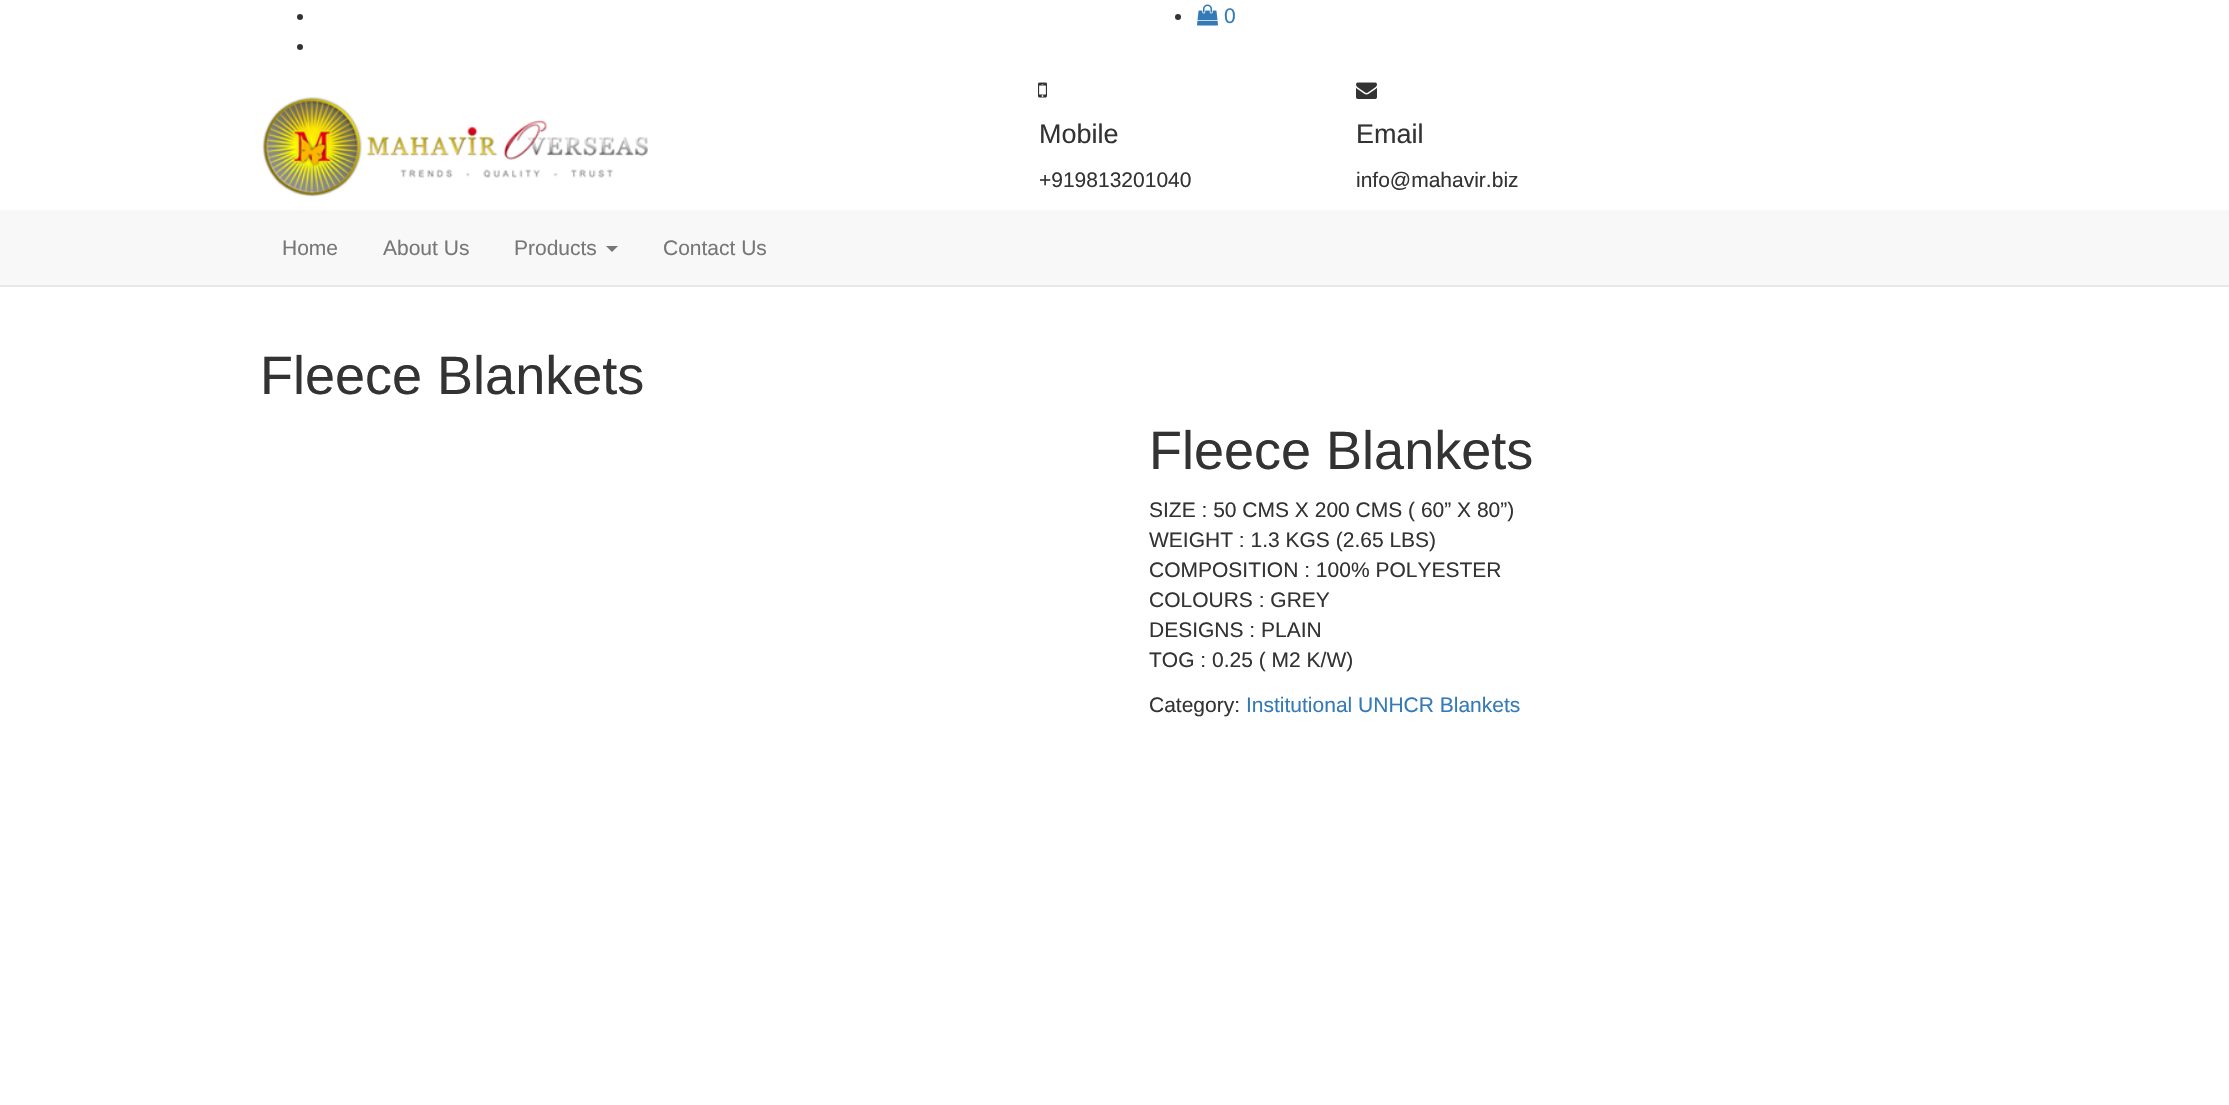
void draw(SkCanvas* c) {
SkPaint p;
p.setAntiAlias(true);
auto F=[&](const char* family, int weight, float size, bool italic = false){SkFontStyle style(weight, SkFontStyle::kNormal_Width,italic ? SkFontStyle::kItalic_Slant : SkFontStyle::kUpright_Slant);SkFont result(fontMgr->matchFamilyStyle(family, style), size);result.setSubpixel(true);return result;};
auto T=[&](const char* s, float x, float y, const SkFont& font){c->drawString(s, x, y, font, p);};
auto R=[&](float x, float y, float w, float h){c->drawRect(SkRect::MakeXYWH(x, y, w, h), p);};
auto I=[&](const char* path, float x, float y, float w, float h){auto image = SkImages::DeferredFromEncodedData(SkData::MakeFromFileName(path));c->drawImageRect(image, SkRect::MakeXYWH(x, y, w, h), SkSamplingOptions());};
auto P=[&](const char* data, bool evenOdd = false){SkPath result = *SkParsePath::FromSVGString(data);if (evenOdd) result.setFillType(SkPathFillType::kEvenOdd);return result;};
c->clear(0xffffffff);
p.setColor(0xff333333);
c->drawCircle(300,17,3,p);
c->drawCircle(300,47,3,p);
c->drawCircle(1178,17,3,p);
I("1.png",1197,4,21,22);
auto f1 = F("Liberation Sans",400,21);
p.setColor(0xff337ab7);
T("0",1224,23,f1);
I("2.png",262,97,386,100);
I("3.png",1038,82,9,16);
auto f2 = F("Liberation Sans",400,27);
p.setColor(0xff333333);
T("Mobile",1039,143,f2);
T("+919813201040",1039,187,f1);
I("4.png",1356,82,21,17);
T("Email",1356,143,f2);
T("info@mahavir.biz",1356,187,f1);
p.setColor(0xfff8f8f8);
R(0,210,2229,75);
p.setColor(0xffe7e7e7);
R(0,285,2229,2);
p.setColor(0xff777777);
T("Home",282,255,f1);
T("About Us",383,255,f1);
T("Products",514,255,f1);
c->drawPath(P("M606 246h12l-6 6z"),p);
T("Contact Us",663,255,f1);
auto f3 = F("Liberation Sans",400,54);
p.setColor(0xff333333);
T("Fleece Blankets",260,394,f3);
T("Fleece Blankets",1149,469,f3);
T("SIZE : 50 CMS X 200 CMS ( 60” X 80”)",1149,517,f1);
T("WEIGHT : 1.3 KGS (2.65 LBS)",1149,547,f1);
T("COMPOSITION : 100% POLYESTER",1149,577,f1);
T("COLOURS : GREY",1149,607,f1);
T("DESIGNS : PLAIN",1149,637,f1);
T("TOG : 0.25 ( M2 K/W)",1149,667,f1);
T("Category:",1149,712,f1);
p.setColor(0xff337ab7);
T("Institutional UNHCR Blankets",1246,712,f1);
}
